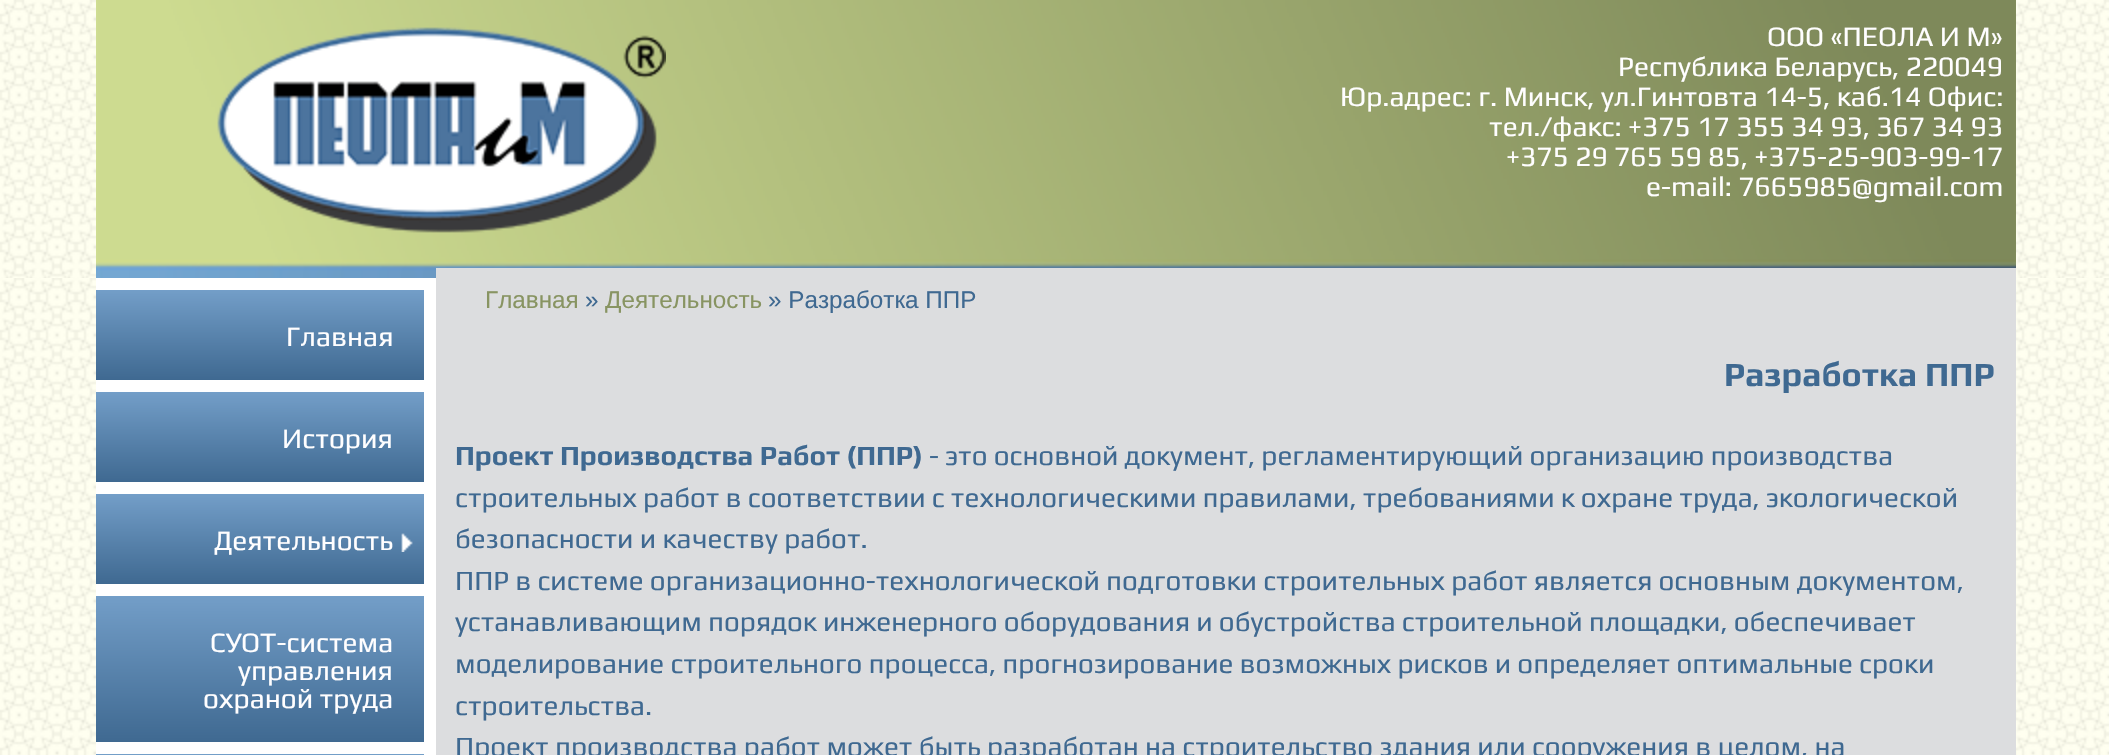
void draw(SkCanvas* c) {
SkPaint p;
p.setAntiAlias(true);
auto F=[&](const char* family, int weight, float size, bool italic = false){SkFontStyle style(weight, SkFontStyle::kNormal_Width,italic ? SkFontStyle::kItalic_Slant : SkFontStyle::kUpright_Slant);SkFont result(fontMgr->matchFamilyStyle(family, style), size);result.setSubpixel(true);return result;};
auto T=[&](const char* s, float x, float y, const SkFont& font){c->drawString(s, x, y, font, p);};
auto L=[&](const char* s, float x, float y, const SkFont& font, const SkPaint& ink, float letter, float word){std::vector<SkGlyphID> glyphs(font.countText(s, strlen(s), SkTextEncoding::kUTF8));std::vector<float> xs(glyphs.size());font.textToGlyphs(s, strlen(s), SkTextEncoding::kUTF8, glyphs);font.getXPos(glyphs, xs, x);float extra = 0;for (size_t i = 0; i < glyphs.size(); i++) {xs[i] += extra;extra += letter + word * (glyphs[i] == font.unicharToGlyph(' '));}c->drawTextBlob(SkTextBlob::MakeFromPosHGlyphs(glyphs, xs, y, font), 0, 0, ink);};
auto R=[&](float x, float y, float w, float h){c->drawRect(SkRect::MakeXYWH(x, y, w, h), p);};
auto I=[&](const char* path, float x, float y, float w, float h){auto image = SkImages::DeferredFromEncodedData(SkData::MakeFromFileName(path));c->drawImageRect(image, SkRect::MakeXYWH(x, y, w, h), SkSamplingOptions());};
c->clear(0xffffffff);
I("1.png",0,0,2109,278);
I("2.png",96,0,1920,278);
I("3.png",217,27,449,206);
auto f1 = F("Play",400,28);
p.setColor(0xfffffeff);
T("ООО «ПЕОЛА И М»",1767,46,f1);
T("Республика Беларусь, 220049",1618,76,f1);
T("Юр.адрес: г. Минск, ул.Гинтовта 14-5, каб.14 Офис:",1340,106,f1);
T("тел./факс: +375 17 355 34 93, 367 34 93",1489,136,f1);
T("+375 29 765 59 85, +375-25-903-99-17",1506,166,f1);
T("e-mail: 7665985@gmail.com",1646,196,f1);
I("4.png",0,278,2109,477);
p.setColor(0xffffffff);
R(96,278,340,477);
{
const SkColor colors[] = {0xff739ec8,0xff3f6991};
const float stops[] = {0,1};
const SkPoint ends[] = {{260,290}, {260,380}};
p.setShader(SkGradientShader::MakeLinear(ends, colors, stops, 2, SkTileMode::kClamp));
p.setAlpha(255);
}
R(96,290,328,90);
p.setShader(nullptr);
p.setColor(0xfffffeff);
T("Главная",286,346,f1);
{
const SkColor colors[] = {0xff739ec8,0xff3f6991};
const float stops[] = {0,1};
const SkPoint ends[] = {{260,392}, {260,482}};
p.setShader(SkGradientShader::MakeLinear(ends, colors, stops, 2, SkTileMode::kClamp));
p.setAlpha(255);
}
R(96,392,328,90);
p.setShader(nullptr);
p.setColor(0xfffffeff);
T("История",282,448,f1);
{
const SkColor colors[] = {0xff739ec8,0xff3f6991};
const float stops[] = {0,1};
const SkPoint ends[] = {{260,494}, {260,584}};
p.setShader(SkGradientShader::MakeLinear(ends, colors, stops, 2, SkTileMode::kClamp));
p.setAlpha(255);
}
R(96,494,328,90);
p.setShader(nullptr);
p.setColor(0xfffffeff);
T("Деятельность",214,550,f1);
I("5.png",401,533,12,19);
{
const SkColor colors[] = {0xff739ec8,0xff3f6991};
const float stops[] = {0,1};
const SkPoint ends[] = {{260,596}, {260,742}};
p.setShader(SkGradientShader::MakeLinear(ends, colors, stops, 2, SkTileMode::kClamp));
p.setAlpha(255);
}
R(96,596,328,146);
p.setShader(nullptr);
p.setColor(0xfffffeff);
T("СУОТ-система",210,652,f1);
T("управления",238,680,f1);
T("охраной труда",203,708,f1);
{
const SkColor colors[] = {0xff739ec8,0xff3f6991};
const float stops[] = {0,1};
const SkPoint ends[] = {{260,754}, {260,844}};
p.setShader(SkGradientShader::MakeLinear(ends, colors, stops, 2, SkTileMode::kClamp));
p.setAlpha(255);
}
R(96,754,328,1);
p.setShader(nullptr);
p.setColor(0xffdcdddf);
R(436,268,1580,487);
auto f2 = F("Liberation Sans",400,24.25);
p.setColor(0xff889462);
T("Главная",485,308,f2);
p.setColor(0xff3f6991);
T("»",585,308,f2);
p.setColor(0xff889462);
T("Деятельность",605,308,f2);
p.setColor(0xff3f6991);
T("» Разработка ППР",768,308,f2);
auto f3 = F("Play",700,34);
T("Разработка ППР",1724,386,f3);
auto f4 = F("Play",700,27.85);
T("Проект Производства Работ (ППР)",455,465,f4);
auto f5 = F("Play",400,27.85);
L("- это основной документ, регламентирующий организацию производства",929,465,f5,p,0,-.25);
L("строительных работ в соответствии с технологическими правилами, требованиями к охране труда, экологической",455,507,f5,p,0,-.25);
T("безопасности и качеству работ.",455,548,f5);
L("ППР в системе организационно-технологической подготовки строительных работ является основным документом,",455,590,f5,p,0,-.25);
L("устанавливающим порядок инженерного оборудования и обустройства строительной площадки, обеспечивает",455,631,f5,p,0,-.25);
L("моделирование строительного процесса, прогнозирование возможных рисков и определяет оптимальные сроки",455,673,f5,p,0,-.25);
T("строительства.",455,715,f5);
L("Проект производства работ может быть разработан на строительство здания или сооружения в целом, на",455,756,f5,p,0,-.1);
}
